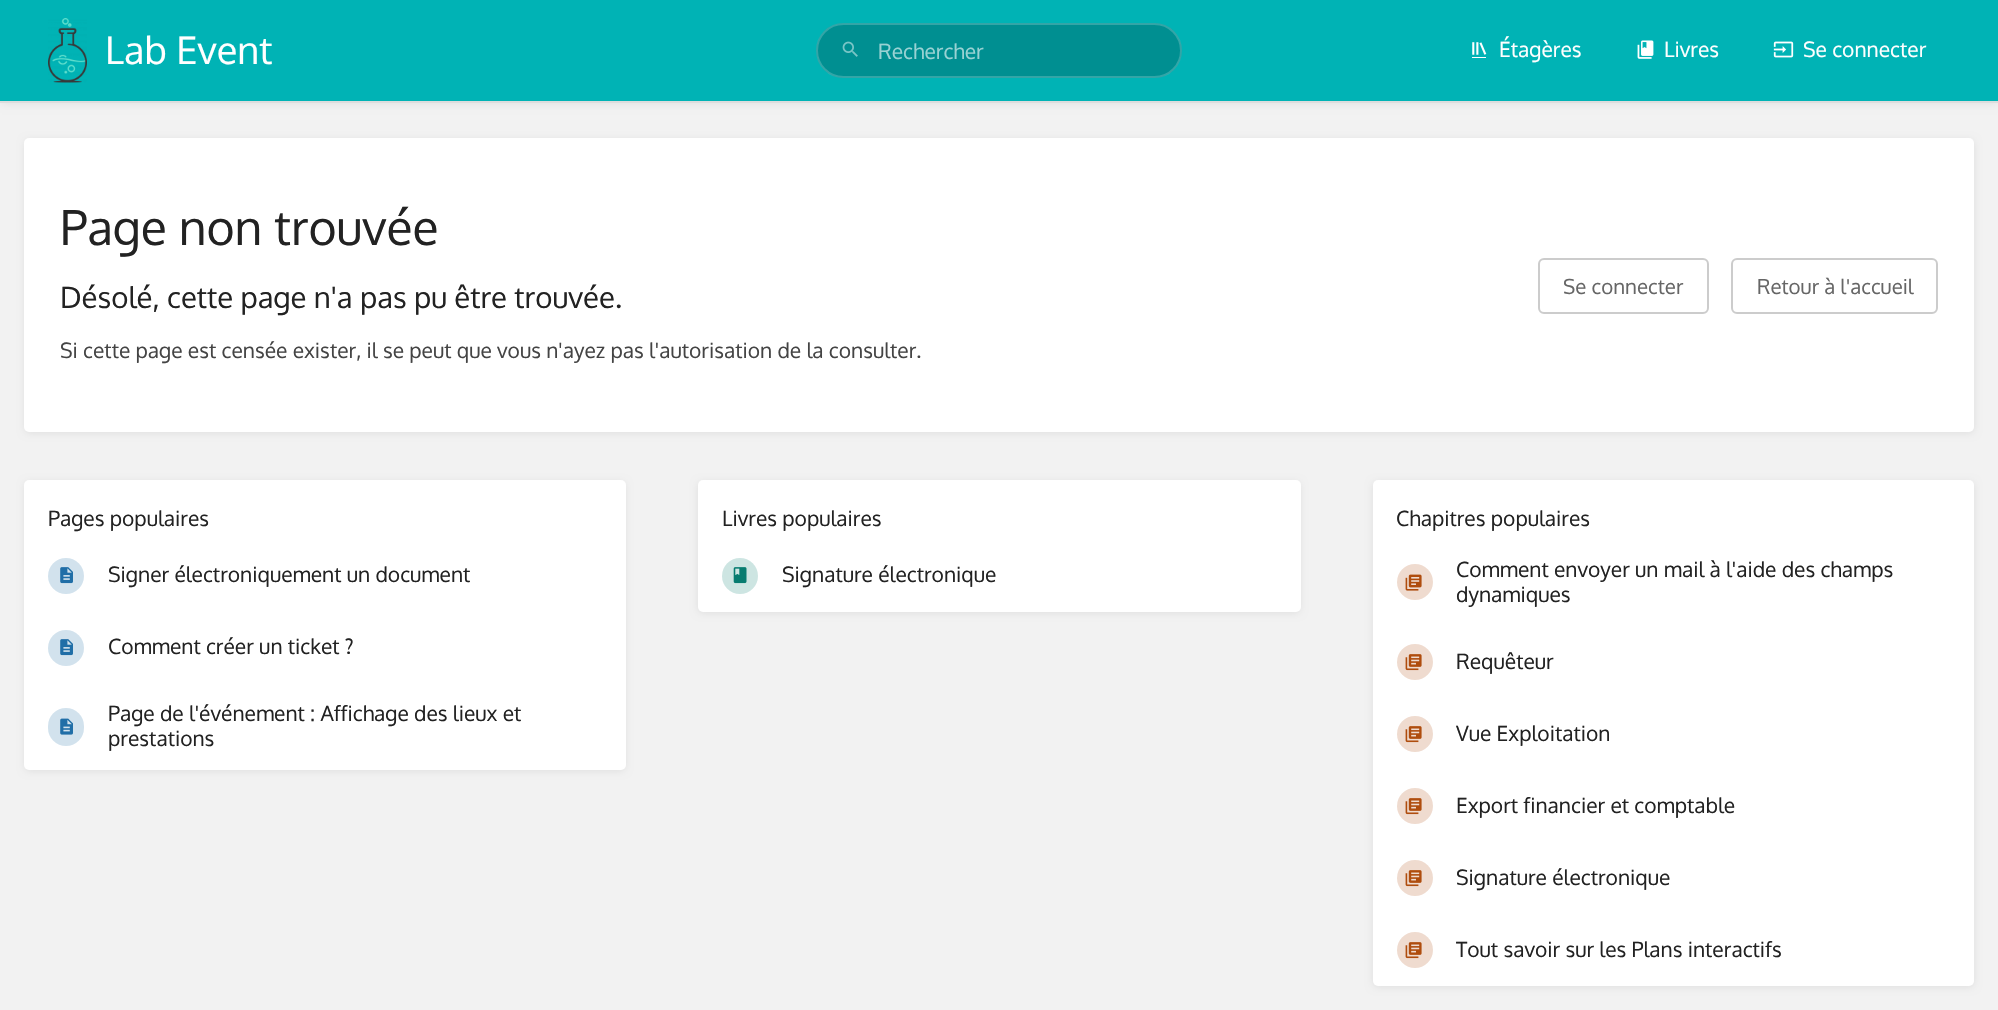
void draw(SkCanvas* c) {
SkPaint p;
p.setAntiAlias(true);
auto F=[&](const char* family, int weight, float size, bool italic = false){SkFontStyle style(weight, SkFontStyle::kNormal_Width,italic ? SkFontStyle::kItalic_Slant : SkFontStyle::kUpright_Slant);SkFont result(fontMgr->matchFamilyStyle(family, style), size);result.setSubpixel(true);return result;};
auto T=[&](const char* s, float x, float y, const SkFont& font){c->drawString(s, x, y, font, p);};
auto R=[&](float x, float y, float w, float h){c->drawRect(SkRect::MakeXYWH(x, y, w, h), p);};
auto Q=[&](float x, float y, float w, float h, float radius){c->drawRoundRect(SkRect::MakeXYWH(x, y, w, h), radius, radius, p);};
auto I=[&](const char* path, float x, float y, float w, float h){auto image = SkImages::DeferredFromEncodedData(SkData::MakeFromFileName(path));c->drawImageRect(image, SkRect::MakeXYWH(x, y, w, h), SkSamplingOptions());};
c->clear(0xfff2f2f2);
p.setColor(0x1a000000);
p.setMaskFilter(SkMaskFilter::MakeBlur(kNormal_SkBlurStyle, 4.5));
c->drawRect(SkRect::MakeXYWH(2,3,1995,99),p);
p.setMaskFilter(nullptr);
p.setColor(0xff00b3b5);
R(0,0,1998,101);
p.setColor(0xffdddddd);
R(0,101,1998,2);
I("1.png",48,18,39,65);
auto f1 = F("Oxygen",400,38);
p.setColor(0xffffffff);
T("Lab Event",105,64,f1);
p.setColor(0xff008f91);
Q(816,23,366,55,27.5);
p.setStroke(true);
p.setStrokeWidth(2);
p.setColor(0x33ffffff);
c->drawRoundRect(SkRect::MakeXYWH(817,24,364,53),26.5,26.5,p);
I("2.png",842,41,16,16);
auto f2 = F("Oxygen",400,21);
p.setStroke(false);
p.setColor(0xff99d2d3);
T("Rechercher",878,59,f2);
I("3.png",1472,42,15,16);
p.setColor(0xffffffff);
T("Étagères",1499,57,f2);
I("4.png",1637,40,17,19);
T("Livres",1664,57,f2);
I("5.png",1773,41,21,17);
T("Se connecter",1803,57,f2);
p.setColor(0x1a000000);
p.setMaskFilter(SkMaskFilter::MakeBlur(kNormal_SkBlurStyle, 4.5));
c->drawRoundRect(SkRect::MakeXYWH(26,141,1947,291),3,3,p);
p.setMaskFilter(nullptr);
p.setColor(0xffffffff);
Q(24,138,1950,294,5);
auto f3 = F("Oxygen",400,48);
p.setColor(0xff222222);
T("Page non trouvée",60,245,f3);
auto f4 = F("Oxygen",400,29.4);
T("Désolé, cette page n'a pas pu être trouvée.",60,308,f4);
p.setColor(0xff444444);
T("Si cette page est censée exister, il se peut que vous n'ayez pas l'autorisation de la consulter.",60,358,f2);
p.setStroke(true);
p.setColor(0xffcccccc);
c->drawRoundRect(SkRect::MakeXYWH(1539,259,169,54),5,5,p);
auto f5 = F("Oxygen",400,20.5);
p.setStroke(false);
p.setColor(0xff666666);
T("Se connecter",1563,294,f5);
p.setStroke(true);
p.setColor(0xffcccccc);
c->drawRoundRect(SkRect::MakeXYWH(1732,259,205,54),5,5,p);
p.setStroke(false);
p.setColor(0xff666666);
T("Retour à l'accueil",1757,294,f5);
p.setColor(0x1a000000);
p.setMaskFilter(SkMaskFilter::MakeBlur(kNormal_SkBlurStyle, 4.5));
c->drawRoundRect(SkRect::MakeXYWH(26,483,598,287),3,3,p);
p.setMaskFilter(nullptr);
p.setColor(0xffffffff);
Q(24,480,602,290,5);
p.setColor(0xff222222);
T("Pages populaires",48,526,f2);
I("6.png",60,567,13,17);
p.setColor(0x33206ea7);
c->drawCircle(66,576,18,p);
p.setColor(0xff222222);
T("Signer électroniquement un document",108,582,f2);
I("6.png",60,639,13,17);
p.setColor(0x33206ea7);
c->drawCircle(66,648,18,p);
p.setColor(0xff222222);
T("Comment créer un ticket ?",108,654,f2);
I("7.png",60,718,13,17);
p.setColor(0x33206ea7);
Q(48,708,36,38,18);
p.setColor(0xff222222);
T("Page de l'événement : Affichage des lieux et",108,721,f2);
T("prestations",108,746,f2);
p.setColor(0x1a000000);
p.setMaskFilter(SkMaskFilter::MakeBlur(kNormal_SkBlurStyle, 4.5));
c->drawRoundRect(SkRect::MakeXYWH(699,483,600,129),3,3,p);
p.setMaskFilter(nullptr);
p.setColor(0xffffffff);
Q(698,480,603,132,5);
p.setColor(0xff222222);
T("Livres populaires",722,526,f2);
I("8.png",733,567,14,17);
p.setColor(0x33077b70);
c->drawCircle(740,576,18,p);
p.setColor(0xff222222);
T("Signature électronique",782,582,f2);
p.setColor(0x1a000000);
p.setMaskFilter(SkMaskFilter::MakeBlur(kNormal_SkBlurStyle, 4.5));
c->drawRoundRect(SkRect::MakeXYWH(1374,483,599,503),3,3,p);
p.setMaskFilter(nullptr);
p.setColor(0xffffffff);
Q(1373,480,601,506,5);
p.setColor(0xff222222);
T("Chapitres populaires",1396,526,f2);
I("9.png",1405,574,17,17);
p.setColor(0x33af4d0d);
c->drawCircle(1415,582,18,p);
p.setColor(0xff222222);
T("Comment envoyer un mail à l'aide des champs",1456,577,f2);
T("dynamiques",1456,602,f2);
I("10.png",1405,654,17,17);
p.setColor(0x33af4d0d);
c->drawCircle(1415,662,18,p);
p.setColor(0xff222222);
T("Requêteur",1456,669,f2);
I("10.png",1405,726,17,17);
p.setColor(0x33af4d0d);
c->drawCircle(1415,734,18,p);
p.setColor(0xff222222);
T("Vue Exploitation",1456,741,f2);
I("10.png",1405,798,17,17);
p.setColor(0x33af4d0d);
c->drawCircle(1415,806,18,p);
p.setColor(0xff222222);
T("Export financier et comptable",1456,813,f2);
I("10.png",1405,870,17,17);
p.setColor(0x33af4d0d);
c->drawCircle(1415,878,18,p);
p.setColor(0xff222222);
T("Signature électronique",1456,885,f2);
I("10.png",1405,942,17,17);
p.setColor(0x33af4d0d);
c->drawCircle(1415,950,18,p);
p.setColor(0xff222222);
T("Tout savoir sur les Plans interactifs",1456,957,f2);
}
